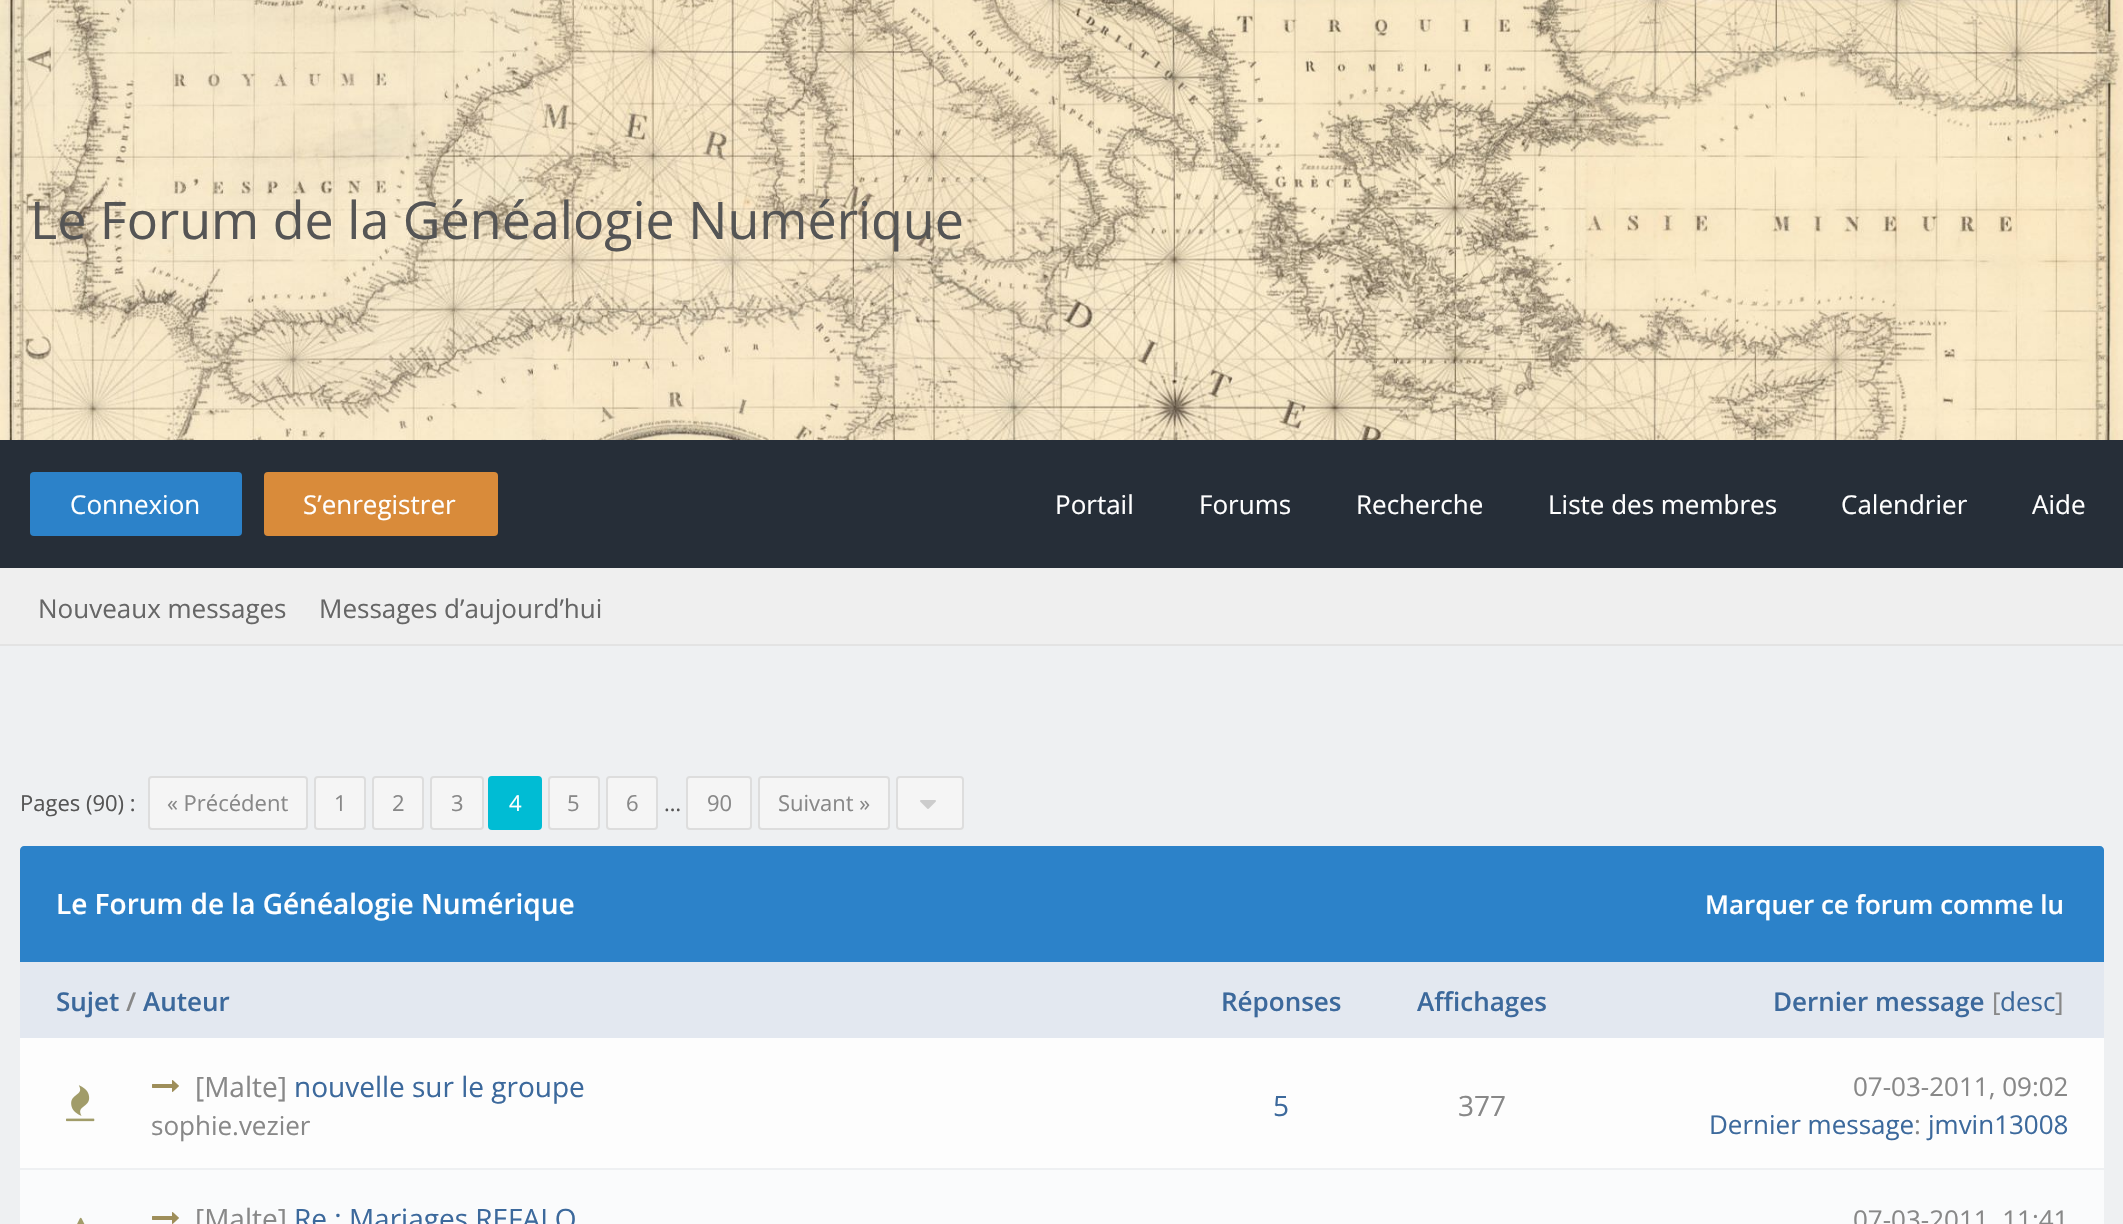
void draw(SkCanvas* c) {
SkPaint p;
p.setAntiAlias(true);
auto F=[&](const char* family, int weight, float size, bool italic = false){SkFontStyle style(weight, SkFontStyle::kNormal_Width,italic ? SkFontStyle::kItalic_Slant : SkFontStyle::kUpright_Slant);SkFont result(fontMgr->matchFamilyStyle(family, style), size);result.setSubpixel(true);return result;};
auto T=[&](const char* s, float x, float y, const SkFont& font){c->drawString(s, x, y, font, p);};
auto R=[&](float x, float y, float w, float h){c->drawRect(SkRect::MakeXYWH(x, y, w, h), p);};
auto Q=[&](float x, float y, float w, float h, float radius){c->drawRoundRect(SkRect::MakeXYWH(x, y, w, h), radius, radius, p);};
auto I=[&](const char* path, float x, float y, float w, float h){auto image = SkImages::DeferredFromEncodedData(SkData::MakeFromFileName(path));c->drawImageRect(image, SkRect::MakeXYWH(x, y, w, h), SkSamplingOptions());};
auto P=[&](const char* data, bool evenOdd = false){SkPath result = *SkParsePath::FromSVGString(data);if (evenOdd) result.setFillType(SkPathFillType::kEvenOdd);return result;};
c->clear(0xffffffff);
I("1.png",0,0,2123,440);
auto f1 = F("Open Sans",400,52);
p.setColor(0xff555555);
T("Le Forum de la Généalogie Numérique",30,239,f1);
p.setColor(0xff262e38);
R(0,440,2123,128);
p.setColor(0xff2c82c9);
Q(30,472,212,64,4);
auto f2 = F("Open Sans",400,26);
p.setColor(0xffffffff);
T("Connexion",70,514,f2);
p.setColor(0xffd98b3a);
Q(264,472,234,64,4);
p.setColor(0xffffffff);
T("S’enregistrer",303,514,f2);
T("Portail",1055,514,f2);
T("Forums",1199,514,f2);
T("Recherche",1356,514,f2);
T("Liste des membres",1548,514,f2);
T("Calendrier",1841,514,f2);
T("Aide",2032,514,f2);
p.setColor(0xffefefef);
R(0,568,2123,76);
p.setColor(0xffe3e3e3);
R(0,644,2123,2);
p.setColor(0xff666666);
T("Nouveaux messages",38,618,f2);
T("Messages d’aujourd’hui",319,618,f2);
p.setColor(0xffeef0f2);
R(0,646,2123,578);
auto f3 = F("Open Sans",400,22);
p.setColor(0xff555555);
T("Pages (90) :",20,811,f3);
p.setColor(0xfff5f5f5);
c->drawRoundRect(SkRect::MakeXYWH(149,777,158,52),3,3,p);
p.setStroke(true);
p.setStrokeWidth(2);
p.setColor(0xffdddddd);
c->drawRoundRect(SkRect::MakeXYWH(149,777,158,52),3,3,p);
p.setStroke(false);
p.setColor(0xff888888);
T("« Précédent",167,811,f3);
p.setColor(0xfff5f5f5);
c->drawRoundRect(SkRect::MakeXYWH(315,777,50,52),3,3,p);
p.setStroke(true);
p.setColor(0xffdddddd);
c->drawRoundRect(SkRect::MakeXYWH(315,777,50,52),3,3,p);
p.setStroke(false);
p.setColor(0xff888888);
T("1",334,811,f3);
p.setColor(0xfff5f5f5);
c->drawRoundRect(SkRect::MakeXYWH(373,777,50,52),3,3,p);
p.setStroke(true);
p.setColor(0xffdddddd);
c->drawRoundRect(SkRect::MakeXYWH(373,777,50,52),3,3,p);
p.setStroke(false);
p.setColor(0xff888888);
T("2",392,811,f3);
p.setColor(0xfff5f5f5);
c->drawRoundRect(SkRect::MakeXYWH(431,777,52,52),3,3,p);
p.setStroke(true);
p.setColor(0xffdddddd);
c->drawRoundRect(SkRect::MakeXYWH(431,777,52,52),3,3,p);
p.setStroke(false);
p.setColor(0xff888888);
T("3",451,811,f3);
p.setColor(0xff00bcd4);
c->drawRoundRect(SkRect::MakeXYWH(489,777,52,52),3,3,p);
p.setStroke(true);
c->drawRoundRect(SkRect::MakeXYWH(489,777,52,52),3,3,p);
p.setStroke(false);
p.setColor(0xffffffff);
T("4",509,811,f3);
p.setColor(0xfff5f5f5);
c->drawRoundRect(SkRect::MakeXYWH(549,777,50,52),3,3,p);
p.setStroke(true);
p.setColor(0xffdddddd);
c->drawRoundRect(SkRect::MakeXYWH(549,777,50,52),3,3,p);
p.setStroke(false);
p.setColor(0xff888888);
T("5",567,811,f3);
p.setColor(0xfff5f5f5);
c->drawRoundRect(SkRect::MakeXYWH(607,777,50,52),3,3,p);
p.setStroke(true);
p.setColor(0xffdddddd);
c->drawRoundRect(SkRect::MakeXYWH(607,777,50,52),3,3,p);
p.setStroke(false);
p.setColor(0xff888888);
T("6",626,811,f3);
p.setColor(0xff555555);
T("…",664,811,f3);
p.setColor(0xfff5f5f5);
c->drawRoundRect(SkRect::MakeXYWH(687,777,64,52),3,3,p);
p.setStroke(true);
p.setColor(0xffdddddd);
c->drawRoundRect(SkRect::MakeXYWH(687,777,64,52),3,3,p);
p.setStroke(false);
p.setColor(0xff888888);
T("90",707,811,f3);
p.setColor(0xfff5f5f5);
c->drawRoundRect(SkRect::MakeXYWH(759,777,130,52),3,3,p);
p.setStroke(true);
p.setColor(0xffdddddd);
c->drawRoundRect(SkRect::MakeXYWH(759,777,130,52),3,3,p);
p.setStroke(false);
p.setColor(0xff888888);
T("Suivant »",778,811,f3);
p.setColor(0xfff5f5f5);
c->drawRoundRect(SkRect::MakeXYWH(897,777,66,52),3,3,p);
p.setStroke(true);
p.setColor(0xffdddddd);
c->drawRoundRect(SkRect::MakeXYWH(897,777,66,52),3,3,p);
I("2.png",920,800,16,9);
p.setStroke(false);
p.setColor(0xff2c82c9);
c->drawPath(P("M24 846h2076c2 0 4 2 4 4v112h-2084v-112c0-2 2-4 4-4z"),p);
auto f4 = F("Open Sans",600,28);
p.setColor(0xffffffff);
T("Le Forum de la Généalogie Numérique",56,914,f4);
auto f5 = F("Open Sans",600,26);
T("Marquer ce forum comme lu",1705,914,f5);
p.setColor(0xffe3e8f0);
R(20,962,2084,76);
p.setColor(0xff3c699c);
T("Sujet",56,1011,f5);
p.setColor(0xff888888);
T("/",126,1011,f5);
p.setColor(0xff3c699c);
T("Auteur",143,1011,f5);
T("Réponses",1221,1011,f5);
T("Affichages",1417,1011,f5);
T("Dernier message",1773,1011,f5);
p.setColor(0xff888888);
T("[",1992,1011,f2);
p.setColor(0xff3c699c);
T("desc",2000,1011,f2);
p.setColor(0xff888888);
T("]",2055,1011,f2);
p.setColor(0xfffdfdfd);
R(20,1038,2084,130);
I("3.png",66,1085,29,37);
I("4.png",152,1080,27,12);
auto f6 = F("Open Sans",400,28);
p.setColor(0xff888888);
T("[Malte]",195,1097,f6);
p.setColor(0xff3c699c);
T("nouvelle sur le groupe",294,1097,f6);
p.setColor(0xff888888);
T("sophie.vezier",151,1135,f2);
p.setColor(0xff3c699c);
T("5",1273,1116,f6);
p.setColor(0xff888888);
T("377",1458,1116,f6);
T("07-03-2011, 09:02",1853,1096,f2);
p.setColor(0xff3c699c);
T("Dernier message",1709,1134,f2);
p.setColor(0xff888888);
T(":",1914,1134,f2);
p.setColor(0xff3c699c);
T("jmvin13008",1928,1134,f2);
p.setColor(0xfffafbfc);
R(20,1170,2084,54);
I("5.png",77,1217,8,7);
I("6.png",152,1212,27,12);
p.setColor(0xff888888);
T("[Malte]",195,1229,f6);
p.setColor(0xff3c699c);
T("Re : Mariages REFALO",294,1229,f6);
p.setColor(0xff888888);
T("07-03-2011, 11:41",1853,1229,f2);
}
